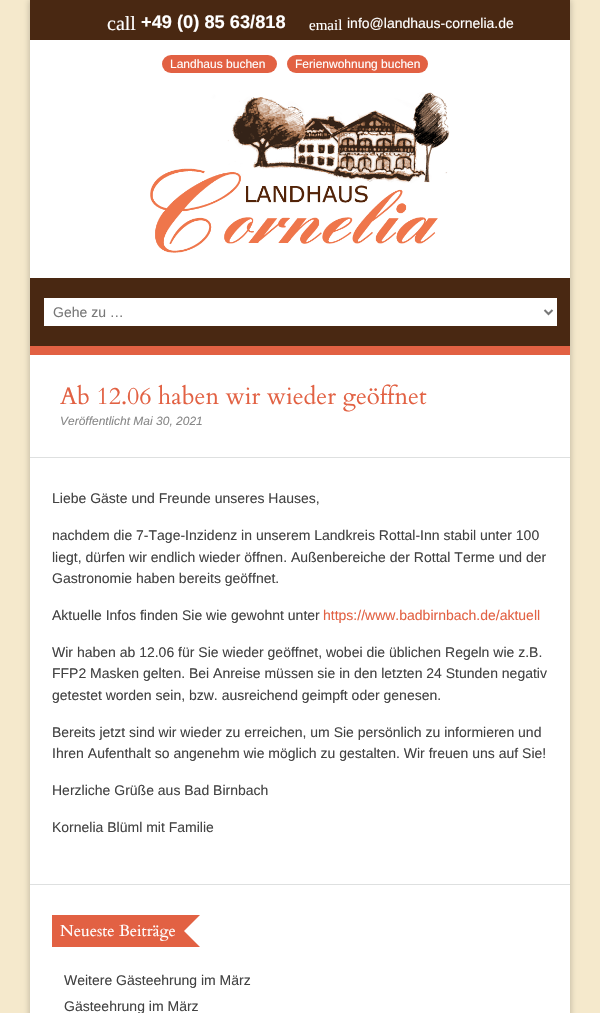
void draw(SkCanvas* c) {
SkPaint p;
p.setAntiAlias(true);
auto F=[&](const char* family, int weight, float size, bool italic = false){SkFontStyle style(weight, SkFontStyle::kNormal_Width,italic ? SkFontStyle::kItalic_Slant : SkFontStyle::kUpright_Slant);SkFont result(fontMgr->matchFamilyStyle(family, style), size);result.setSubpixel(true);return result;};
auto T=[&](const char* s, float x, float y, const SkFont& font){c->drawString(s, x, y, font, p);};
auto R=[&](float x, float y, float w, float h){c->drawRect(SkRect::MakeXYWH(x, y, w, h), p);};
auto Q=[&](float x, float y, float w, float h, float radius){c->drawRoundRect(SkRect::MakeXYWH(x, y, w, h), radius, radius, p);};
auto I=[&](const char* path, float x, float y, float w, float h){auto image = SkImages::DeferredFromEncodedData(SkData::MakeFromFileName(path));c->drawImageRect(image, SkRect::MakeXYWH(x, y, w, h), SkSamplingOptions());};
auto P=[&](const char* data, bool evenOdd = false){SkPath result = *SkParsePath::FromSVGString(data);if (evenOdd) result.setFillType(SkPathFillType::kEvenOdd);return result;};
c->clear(0xfff5e9cc);
p.setColor(0x33000000);
p.setMaskFilter(SkMaskFilter::MakeBlur(kNormal_SkBlurStyle, 3));
c->drawRect(SkRect::MakeXYWH(29,0,542,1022),p);
p.setMaskFilter(nullptr);
p.setColor(0xffffffff);
R(30,40,540,973);
p.setColor(0xff492812);
R(30,0,540,40);
auto f1 = F("Liberation Serif",400,20);
p.setColor(0xffffffff);
T("call",107,30,f1);
auto f2 = F("Liberation Sans",700,18.25);
T("+49 (0) 85 63/818",141,28,f2);
auto f3 = F("Liberation Serif",400,15);
T("email",309,30,f3);
auto f4 = F("Liberation Sans",400,14);
T("info@landhaus-cornelia.de",347,28,f4);
p.setColor(0xffe26143);
Q(162,55,115,18,9);
auto f5 = F("Liberation Sans",400,12);
p.setColor(0xffffffff);
T("Landhaus buchen",170,68,f5);
p.setColor(0xffe26143);
Q(287,55,141,18,9);
p.setColor(0xffffffff);
T("Ferienwohnung buchen",295,68,f5);
I("1.png",150,92,300,161);
p.setColor(0xff492812);
R(30,278,540,68);
p.setColor(0xffe26143);
R(30,346,540,9);
p.setColor(0xffffffff);
R(44,298,513,28);
p.setStroke(true);
p.setStrokeWidth(2);
p.setColor(0xff777777);
c->drawPath(P("M544.5 310l4 4l4-4"),p);
p.setStroke(false);
T("Gehe zu …",53,317,f4);
p.setColor(0xffdee0e0);
R(30,884,540,1);
R(30,457,540,1);
auto f6 = F("Cardo",400,24);
p.setColor(0xffe26143);
T("Ab 12.06 haben wir wieder geöffnet",60,404,f6);
auto f7 = F("Liberation Sans",400,12,true);
p.setColor(0xff888888);
T("Veröffentlicht Mai 30, 2021",60,425,f7);
p.setColor(0xff424242);
T("Liebe Gäste und Freunde unseres Hauses,",52,503,f4);
T("nachdem die 7-Tage-Inzidenz in unserem Landkreis Rottal-Inn stabil unter 100",52,540,f4);
T("liegt, dürfen wir endlich wieder öffnen. Außenbereiche der Rottal Terme und der",52,562,f4);
T("Gastronomie haben bereits geöffnet.",52,583,f4);
T("Aktuelle Infos finden Sie wie gewohnt unter",52,620,f4);
p.setColor(0xffe26143);
T("https://www.badbirnbach.de/aktuell",323,620,f4);
p.setColor(0xff424242);
T("Wir haben ab 12.06 für Sie wieder geöffnet, wobei die üblichen Regeln wie z.B.",52,657,f4);
T("FFP2 Masken gelten. Bei Anreise müssen sie in den letzten 24 Stunden negativ",52,678,f4);
T("getestet worden sein, bzw. ausreichend geimpft oder genesen.",52,700,f4);
T("Bereits jetzt sind wir wieder zu erreichen, um Sie persönlich zu informieren und",52,737,f4);
T("Ihren Aufenthalt so angenehm wie möglich zu gestalten. Wir freuen uns auf Sie!",52,758,f4);
T("Herzliche Grüße aus Bad Birnbach",52,795,f4);
T("Kornelia Blüml mit Familie",52,832,f4);
p.setColor(0xffe26143);
R(52,915,131,32);
auto f8 = F("Cardo",400,16);
p.setColor(0xffffffff);
T("Neueste Beiträge",60,936,f8);
p.setColor(0xffe26143);
c->drawPath(P("M167 915h33l-16 16h-1zm33 32h-33l16-16h1z"),p);
p.setColor(0xff424242);
T("Weitere Gästeehrung im März",64,985,f4);
T("Gästeehrung im März",64,1011,f4);
}
